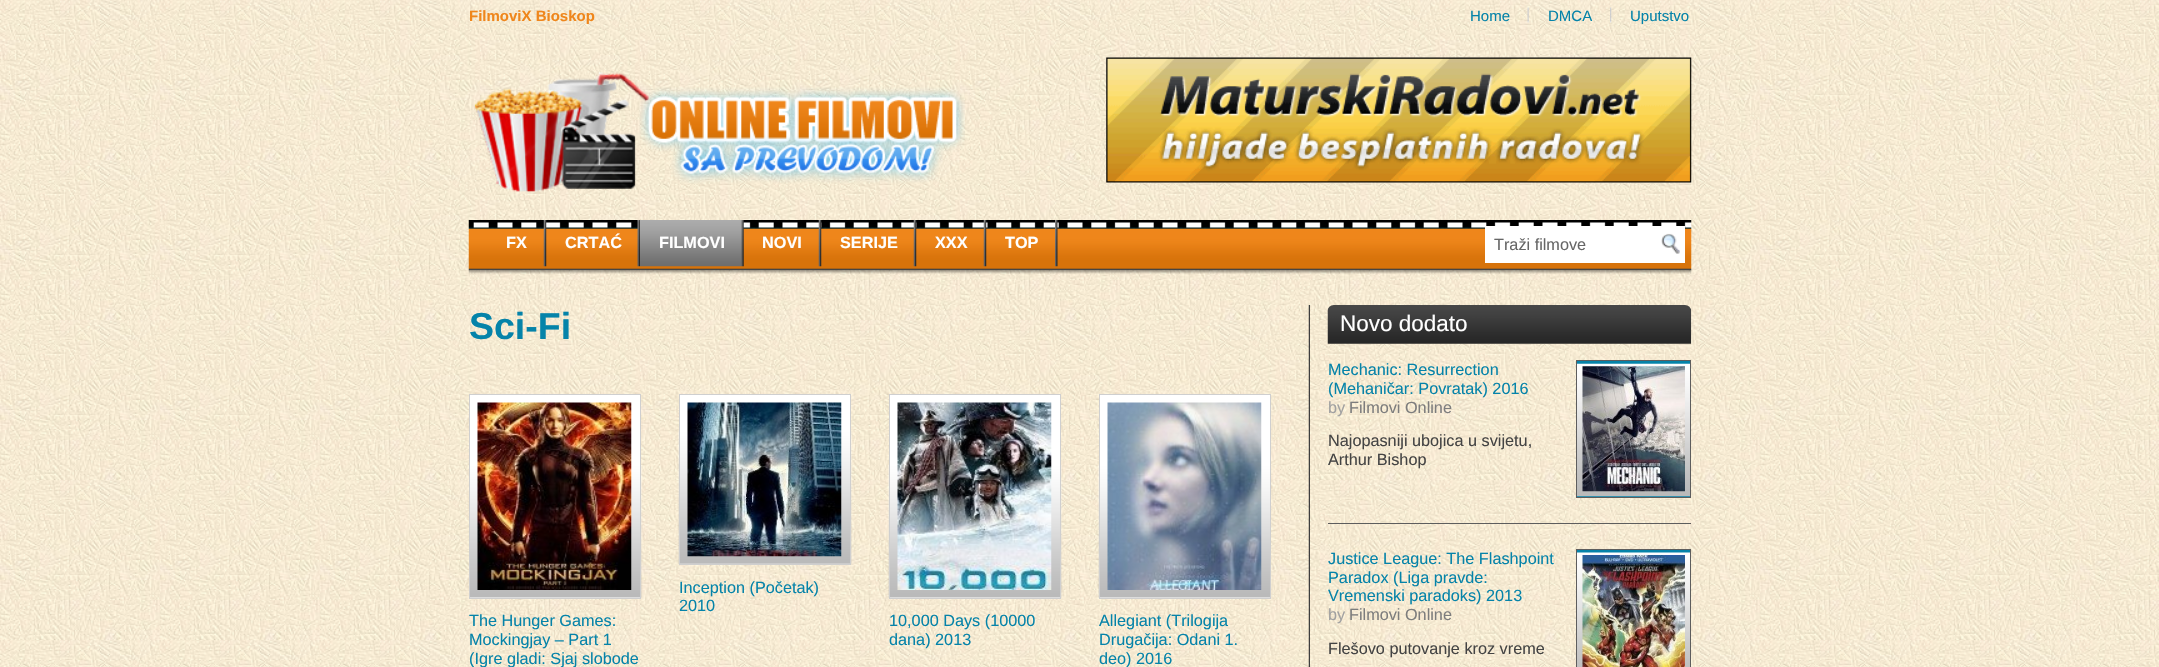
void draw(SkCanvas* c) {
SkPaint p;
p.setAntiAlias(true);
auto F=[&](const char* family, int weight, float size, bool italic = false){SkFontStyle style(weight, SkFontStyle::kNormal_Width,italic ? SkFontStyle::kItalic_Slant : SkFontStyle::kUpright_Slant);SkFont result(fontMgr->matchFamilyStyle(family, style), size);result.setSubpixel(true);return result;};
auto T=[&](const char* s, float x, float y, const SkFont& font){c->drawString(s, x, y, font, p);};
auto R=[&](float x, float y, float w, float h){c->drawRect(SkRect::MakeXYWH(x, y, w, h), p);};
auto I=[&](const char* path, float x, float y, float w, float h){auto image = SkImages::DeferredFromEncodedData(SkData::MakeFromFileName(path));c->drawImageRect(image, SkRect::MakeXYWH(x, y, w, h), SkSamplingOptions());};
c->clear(0xffffffff);
I("1.png",0,0,2159,667);
auto f1 = F("Liberation Sans",700,15);
p.setColor(0xffef861b);
T("FilmoviX Bioskop",469,21,f1);
I("2.png",1527,7,2,16);
auto f2 = F("Liberation Sans",400,15);
p.setColor(0xff0583a9);
T("Home",1470,21,f2);
I("3.png",1610,7,2,16);
T("DMCA",1548,21,f2);
T("Uputstvo",1630,21,f2);
I("4.png",474,71,491,121);
I("5.png",1106,57,586,126);
I("6.png",468,220,1224,54);
I("7.png",543,220,4,47);
auto f3 = F("Liberation Sans",700,16.25);
p.setColor(0xffffffff);
T("FX",506,248,f3);
I("8.png",637,220,3,47);
T("CRTAĆ",565,248,f3);
I("9.png",640,220,104,47);
T("FILMOVI",659,248,f3);
I("10.png",818,220,4,47);
T("NOVI",762,248,f3);
I("10.png",913,220,4,47);
T("SERIJE",840,248,f3);
I("11.png",983,220,4,47);
T("XXX",935,248,f3);
I("12.png",1055,220,3,47);
T("TOP",1005,248,f3);
R(1485,226,200,37);
auto f4 = F("Liberation Sans",400,16.25);
p.setColor(0xff666666);
T("Traži filmove",1494,250,f4);
I("13.png",1661,233,19,21);
auto f5 = F("Liberation Sans",700,37.5);
p.setColor(0xff0583a9);
T("Sci-Fi",469,339,f5);
p.setColor(0xffffffff);
R(680,395,170,169);
I("14.png",678,431,174,133);
p.setStroke(true);
p.setStrokeWidth(1);
p.setColor(0xffcfcfcf);
c->drawRect(SkRect::MakeXYWH(679.5,394.5,171,170),p);
I("15.png",687,402,155,155);
p.setStroke(false);
p.setColor(0xff0583a9);
T("Inception (Početak)",679,593,f4);
T("2010",679,611,f4);
p.setColor(0xffffffff);
R(470,395,170,203);
I("16.png",470,465,172,133);
p.setStroke(true);
p.setColor(0xffcfcfcf);
c->drawRect(SkRect::MakeXYWH(469.5,394.5,171,204),p);
I("17.png",477,402,155,188);
p.setStroke(false);
p.setColor(0xff0583a9);
T("The Hunger Games:",469,626,f4);
T("Mockingjay – Part 1",469,645,f4);
T("(Igre gladi: Sjaj slobode",469,664,f4);
p.setColor(0xffffffff);
R(890,395,170,203);
I("18.png",888,465,174,133);
p.setStroke(true);
p.setColor(0xffcfcfcf);
c->drawRect(SkRect::MakeXYWH(889.5,394.5,171,204),p);
I("19.png",897,402,155,188);
p.setStroke(false);
p.setColor(0xff0583a9);
T("10,000 Days (10000",889,626,f4);
T("dana) 2013",889,645,f4);
p.setColor(0xffffffff);
R(1100,395,170,203);
I("20.png",1098,465,172,133);
p.setStroke(true);
p.setColor(0xffcfcfcf);
c->drawRect(SkRect::MakeXYWH(1099.5,394.5,171,204),p);
I("21.png",1107,402,155,188);
p.setStroke(false);
p.setColor(0xff0583a9);
T("Allegiant (Trilogija",1099,626,f4);
T("Drugačija: Odani 1.",1099,645,f4);
T("deo) 2016",1099,664,f4);
I("22.png",1308,305,2,362);
I("23.png",1327,305,365,39);
auto f6 = F("Liberation Sans",400,22.5);
p.setColor(0xffffffff);
T("Novo dodato",1340,331,f6);
p.setColor(0xff5d5d5d);
R(1328,523,363,1);
p.setColor(0xff0583a9);
T("Mechanic: Resurrection",1328,375,f4);
T("(Mehaničar: Povratak) 2016",1328,394,f4);
R(1577,361,113,136);
I("24.png",1577,363,113,134);
p.setStroke(true);
p.setColor(0xff5d5d5d);
c->drawRect(SkRect::MakeXYWH(1576.5,360.5,114,137),p);
I("25.png",1582,366,103,126);
p.setStroke(false);
p.setColor(0xffa1a1a1);
T("by",1328,413,f4);
p.setColor(0xff7d7d7d);
T("Filmovi Online",1349,413,f4);
p.setColor(0xff444444);
T("Najopasniji ubojica u svijetu,",1328,446,f4);
T("Arthur Bishop",1328,465,f4);
p.setColor(0xff0583a9);
T("Justice League: The Flashpoint",1328,564,f4);
T("Paradox (Liga pravde:",1328,583,f4);
T("Vremenski paradoks) 2013",1328,601,f4);
R(1577,550,113,3);
I("26.png",1577,552,113,115);
p.setStroke(true);
p.setColor(0xff5d5d5d);
c->drawRect(SkRect::MakeXYWH(1576.5,549.5,114,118),p);
I("27.png",1582,555,103,112);
p.setStroke(false);
p.setColor(0xffa1a1a1);
T("by",1328,620,f4);
p.setColor(0xff7d7d7d);
T("Filmovi Online",1349,620,f4);
p.setColor(0xff444444);
T("Flešovo putovanje kroz vreme",1328,654,f4);
}
